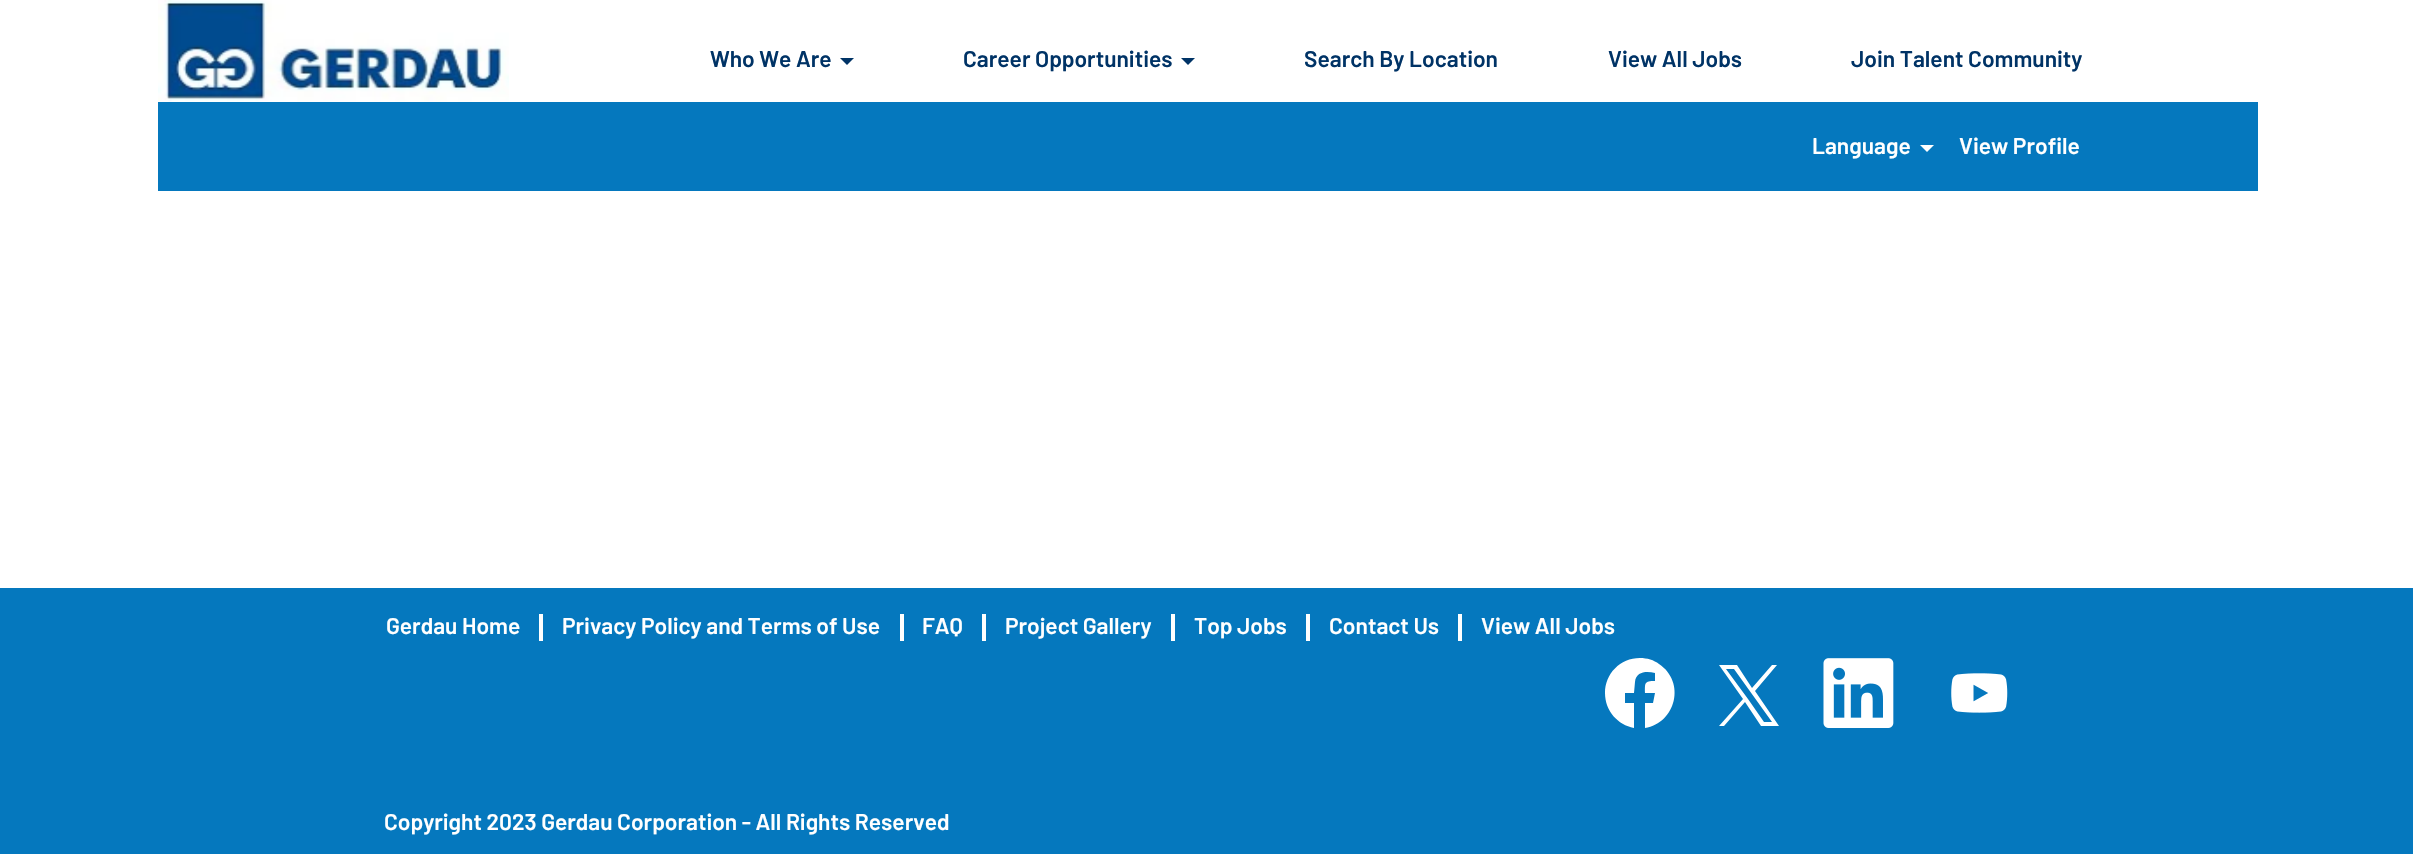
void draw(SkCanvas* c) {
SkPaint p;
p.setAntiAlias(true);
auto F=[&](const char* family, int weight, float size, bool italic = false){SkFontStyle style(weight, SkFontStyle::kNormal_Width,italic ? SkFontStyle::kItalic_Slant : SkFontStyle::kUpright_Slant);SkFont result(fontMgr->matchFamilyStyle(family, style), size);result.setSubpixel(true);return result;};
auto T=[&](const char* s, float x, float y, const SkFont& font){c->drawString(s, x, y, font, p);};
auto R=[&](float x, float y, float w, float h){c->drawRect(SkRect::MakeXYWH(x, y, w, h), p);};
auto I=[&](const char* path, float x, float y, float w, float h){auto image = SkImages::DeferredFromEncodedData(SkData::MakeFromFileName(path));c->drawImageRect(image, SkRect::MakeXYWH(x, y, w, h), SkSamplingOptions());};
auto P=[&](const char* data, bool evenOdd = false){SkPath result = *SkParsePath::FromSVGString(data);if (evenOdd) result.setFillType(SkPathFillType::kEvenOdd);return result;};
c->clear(0xffffffff);
I("1.png",158,0,351,102);
auto f1 = F("Barlow",600,22.75);
p.setColor(0xff003366);
T("Who We Are",710,67,f1);
c->drawPath(P("M840 58h14l-7 7z"),p);
T("Career Opportunities",963,67,f1);
c->drawPath(P("M1181 58h14l-7 7z"),p);
T("Search By Location",1304,67,f1);
T("View All Jobs",1608,67,f1);
T("Join Talent Community",1851,67,f1);
p.setColor(0xff0578be);
R(158,102,2100,89);
p.setColor(0xffffffff);
T("Language",1812,154,f1);
c->drawPath(P("M1920 145h14l-7 7z"),p);
T("View Profile",1959,154,f1);
p.setColor(0xff0578be);
R(0,588,2413,266);
p.setColor(0xffffffff);
R(539,614,4,27);
T("Gerdau Home",386,634,f1);
R(900,614,4,27);
T("Privacy Policy and Terms of Use",562,634,f1);
R(982,614,4,27);
T("FAQ",922,634,f1);
R(1171,614,4,27);
T("Project Gallery",1005,634,f1);
R(1306,614,4,27);
T("Top Jobs",1194,634,f1);
R(1458,614,4,27);
T("Contact Us",1329,634,f1);
T("View All Jobs",1481,634,f1);
c->drawPath(P("M1640 658c-20 0-35 16-35 35c0 18 13 32 29 35v-25h-9v-10h9l1-11c1-11 12-11 20-9v8c-11 0-10 2-10 12h10l-2 10h-8v25c31-5 41-46 14-64c-5-4-12-6-19-6z"),p);
c->drawPath(P("M1755 691l22-26h-5l-20 23l-15-23h-18l24 34l-24 27h5l21-24l16 24h18zm-7 8l-22-30h8l38 53h-8z"),p);
I("2.png",1823,658,71,70);
I("3.png",1951,673,57,40);
T("Copyright 2023 Gerdau Corporation - All Rights Reserved",384,830,f1);
}
